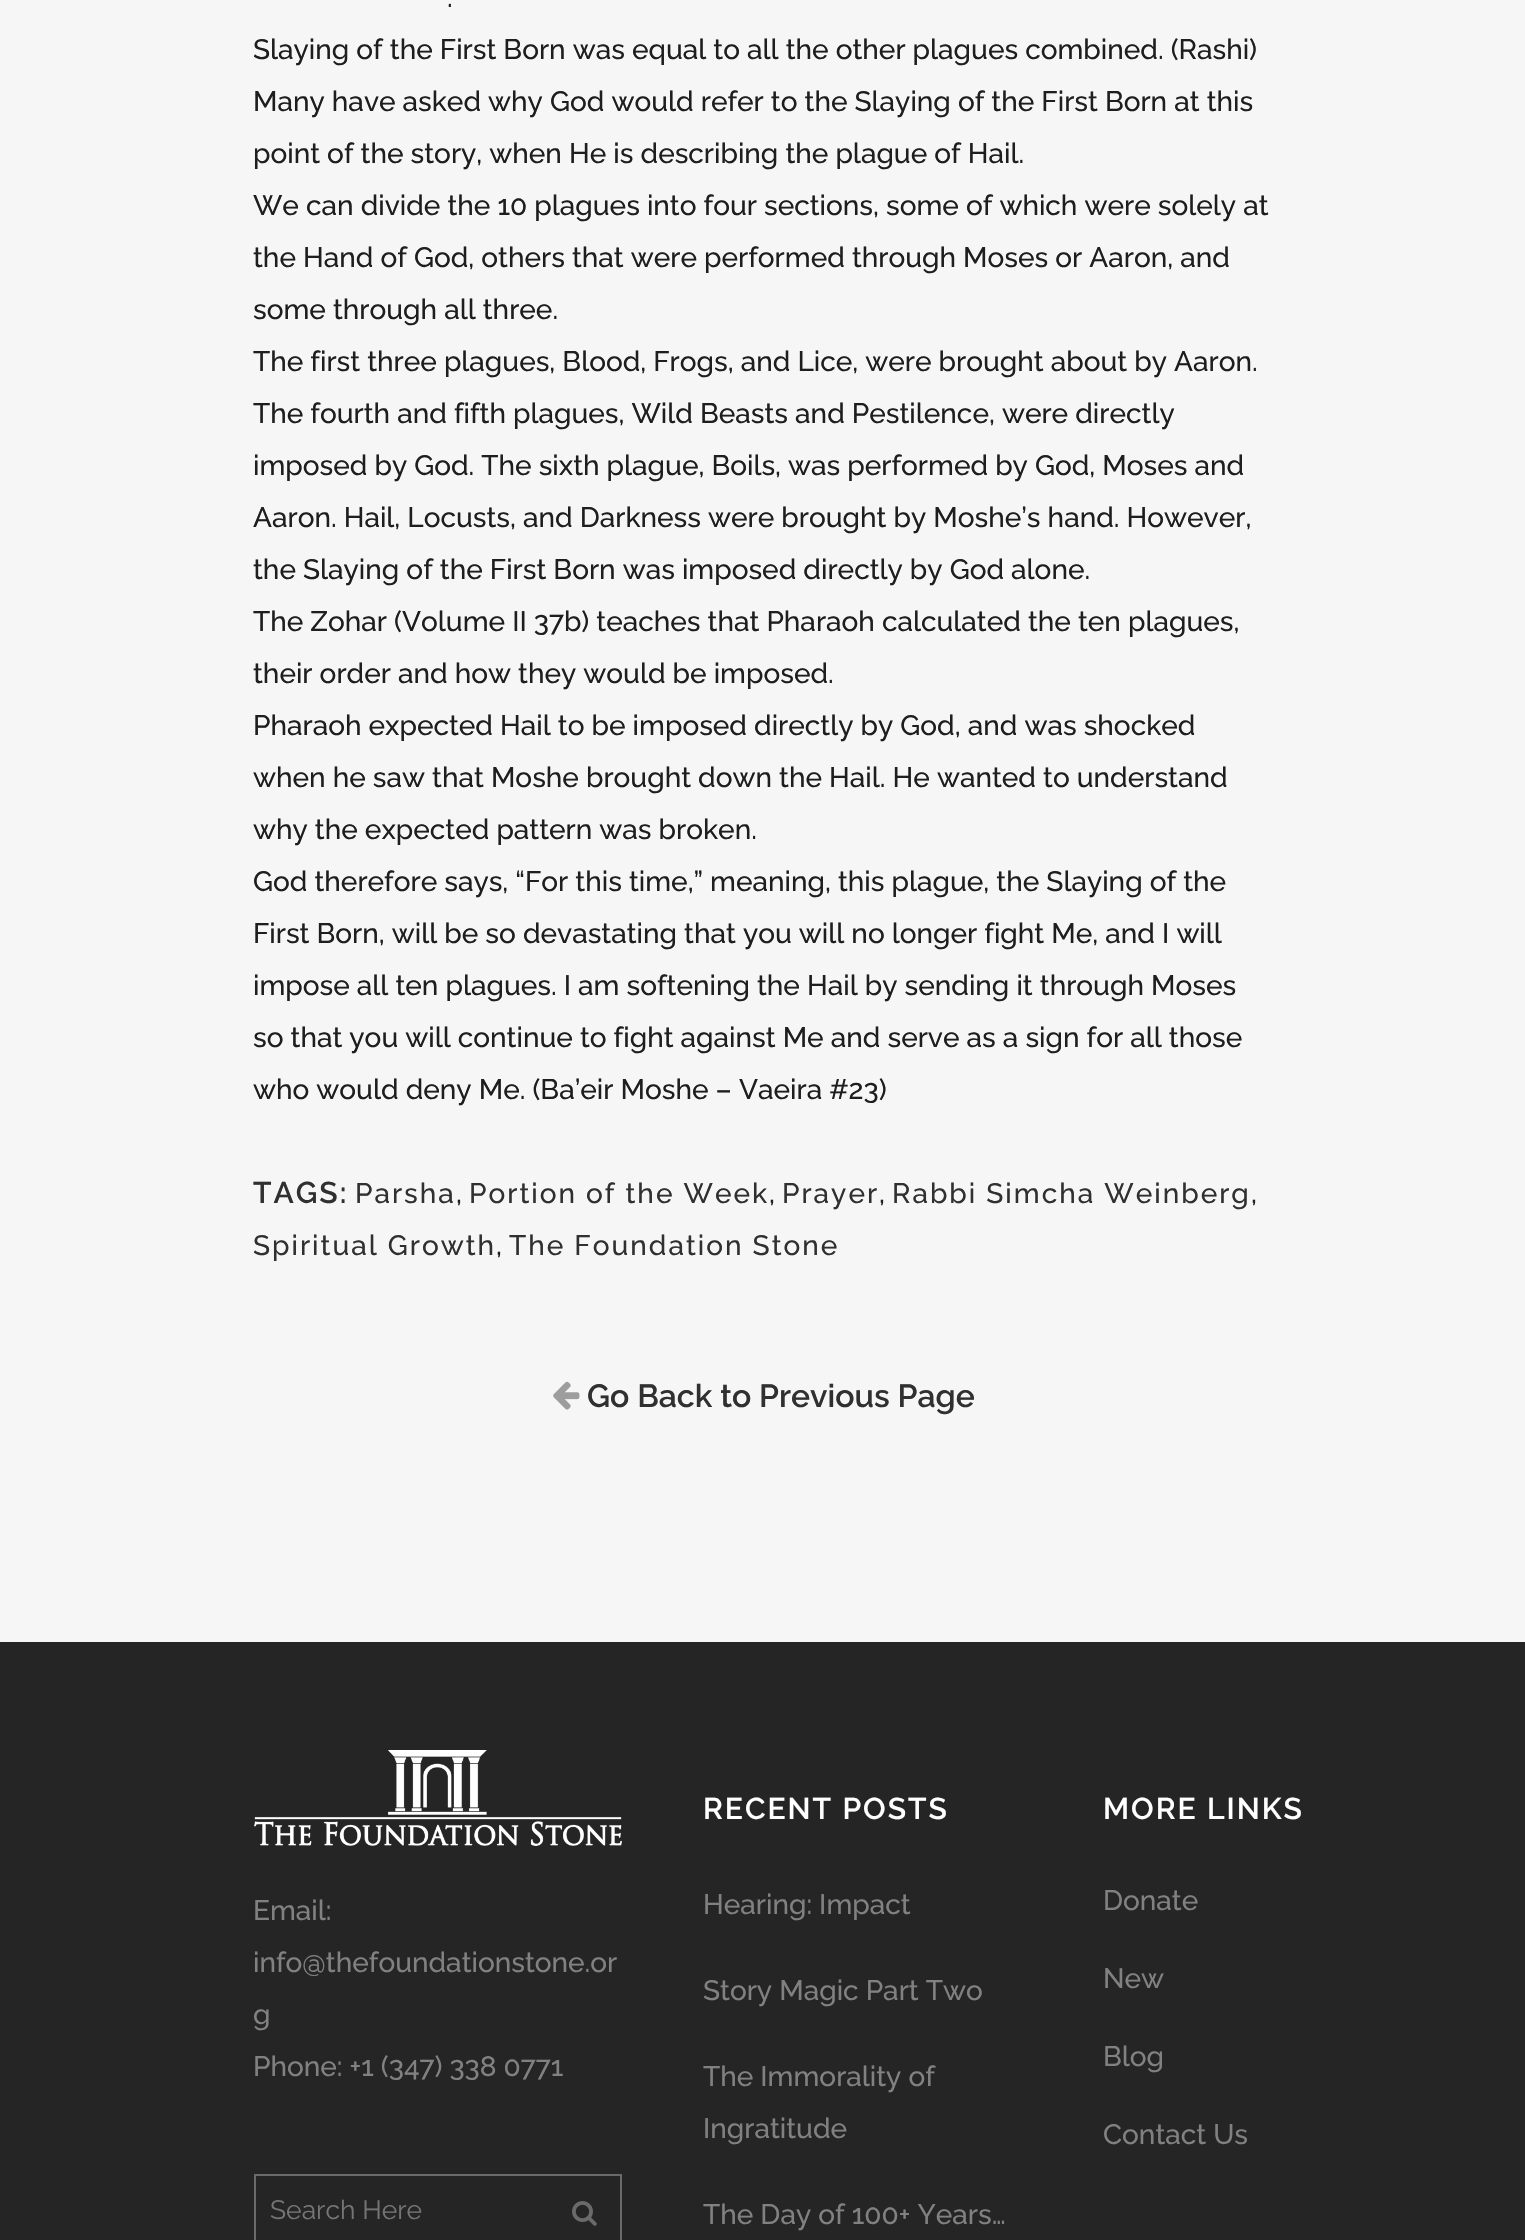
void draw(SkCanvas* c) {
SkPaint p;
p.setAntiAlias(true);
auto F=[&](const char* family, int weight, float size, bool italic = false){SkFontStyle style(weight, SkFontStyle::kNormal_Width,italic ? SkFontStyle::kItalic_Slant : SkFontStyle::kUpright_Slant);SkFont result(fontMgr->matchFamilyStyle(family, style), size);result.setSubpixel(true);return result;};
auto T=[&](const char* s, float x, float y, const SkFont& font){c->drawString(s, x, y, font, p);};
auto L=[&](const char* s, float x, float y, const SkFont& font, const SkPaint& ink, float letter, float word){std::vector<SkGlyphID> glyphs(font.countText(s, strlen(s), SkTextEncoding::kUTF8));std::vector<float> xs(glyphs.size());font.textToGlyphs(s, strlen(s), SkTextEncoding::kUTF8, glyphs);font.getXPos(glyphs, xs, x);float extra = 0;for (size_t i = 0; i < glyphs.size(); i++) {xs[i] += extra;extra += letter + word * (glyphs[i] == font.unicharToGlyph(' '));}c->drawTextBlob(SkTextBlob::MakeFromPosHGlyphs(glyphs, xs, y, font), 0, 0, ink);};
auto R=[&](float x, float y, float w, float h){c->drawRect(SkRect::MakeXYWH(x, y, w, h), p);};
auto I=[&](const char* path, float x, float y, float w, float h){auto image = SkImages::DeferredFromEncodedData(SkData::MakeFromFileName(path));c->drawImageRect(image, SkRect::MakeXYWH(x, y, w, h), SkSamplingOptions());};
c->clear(0xfff6f6f6);
auto f1 = F("Raleway",500,28);
p.setColor(0xff1f1e1e);
T(".",447,7,f1);
T("Slaying of the First Born was equal to all the other plagues combined. (Rashi)",253,59,f1);
T("Many have asked why God would refer to the Slaying of the First Born at this",253,111,f1);
T("point of the story, when He is describing the plague of Hail.",253,163,f1);
T("We can divide the 10 plagues into four sections, some of which were solely at",253,215,f1);
T("the Hand of God, others that were performed through Moses or Aaron, and",253,267,f1);
T("some through all three.",253,319,f1);
T("The first three plagues, Blood, Frogs, and Lice, were brought about by Aaron.",253,371,f1);
T("The fourth and fifth plagues, Wild Beasts and Pestilence, were directly",253,423,f1);
T("imposed by God. The sixth plague, Boils, was performed by God, Moses and",253,475,f1);
T("Aaron. Hail, Locusts, and Darkness were brought by Moshe’s hand. However,",253,527,f1);
T("the Slaying of the First Born was imposed directly by God alone.",253,579,f1);
T("The Zohar (Volume II 37b) teaches that Pharaoh calculated the ten plagues,",253,631,f1);
T("their order and how they would be imposed.",253,683,f1);
T("Pharaoh expected Hail to be imposed directly by God, and was shocked",253,735,f1);
T("when he saw that Moshe brought down the Hail. He wanted to understand",253,787,f1);
T("why the expected pattern was broken.",253,839,f1);
T("God therefore says, “For this time,” meaning, this plague, the Slaying of the",253,891,f1);
T("First Born, will be so devastating that you will no longer fight Me, and I will",253,943,f1);
T("impose all ten plagues. I am softening the Hail by sending it through Moses",253,995,f1);
T("so that you will continue to fight against Me and serve as a sign for all those",253,1047,f1);
T("who would deny Me. (Ba’eir Moshe – Vaeira #23)",253,1099,f1);
auto f2 = F("Raleway",600,30);
p.setColor(0xff303030);
L("TAGS:",253,1203,f2,p,2,0);
L("Parsha",355,1203,f1,p,2,0);
p.setColor(0xff1f1e1e);
T(",",456,1203,f1);
p.setColor(0xff303030);
L("Portion of the Week",469,1203,f1,p,2,0);
p.setColor(0xff1f1e1e);
T(",",769,1203,f1);
p.setColor(0xff303030);
L("Prayer",782,1203,f1,p,2,0);
p.setColor(0xff1f1e1e);
T(",",879,1203,f1);
p.setColor(0xff303030);
L("Rabbi Simcha Weinberg",892,1203,f1,p,2,0);
p.setColor(0xff1f1e1e);
T(",",1251,1203,f1);
p.setColor(0xff303030);
L("Spiritual Growth",253,1255,f1,p,2,0);
p.setColor(0xff1f1e1e);
T(",",496,1255,f1);
p.setColor(0xff303030);
L("The Foundation Stone",509,1255,f1,p,2,0);
I("1.png",553,1381,27,29);
auto f3 = F("Raleway",600,32);
T("Go Back to Previous Page",587,1407,f3);
p.setColor(0xff252525);
R(0,1642,1525,598);
I("2.png",254,1750,368,96);
p.setColor(0xff818181);
T("Email:",253,1920,f1);
T("info@thefoundationstone.or",253,1972,f1);
T("g",253,2024,f1);
T("Phone: +1 (347) 338 0771",253,2076,f1);
p.setStroke(true);
p.setStrokeWidth(2);
p.setColor(0xff6a6a6a);
c->drawRect(SkRect::MakeXYWH(255,2175,366,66),p);
auto f4 = F("Raleway",400,26.5);
p.setStroke(false);
p.setColor(0xff757575);
T("Search Here",270,2219,f4);
I("3.png",572,2201,25,25);
p.setColor(0xffffffff);
L("RECENT POSTS",703,1819,f2,p,2,0);
p.setColor(0xff818181);
T("Hearing: Impact",703,1914,f1);
T("Story Magic Part Two",703,2000,f1);
T("The Immorality of",703,2086,f1);
T("Ingratitude",703,2138,f1);
T("The Day of 100+ Years…",703,2224,f1);
p.setColor(0xffffffff);
L("MORE LINKS",1103,1819,f2,p,2,0);
p.setColor(0xff818181);
T("Donate",1103,1910,f1);
T("New",1103,1988,f1);
T("Blog",1103,2066,f1);
T("Contact Us",1103,2144,f1);
}
